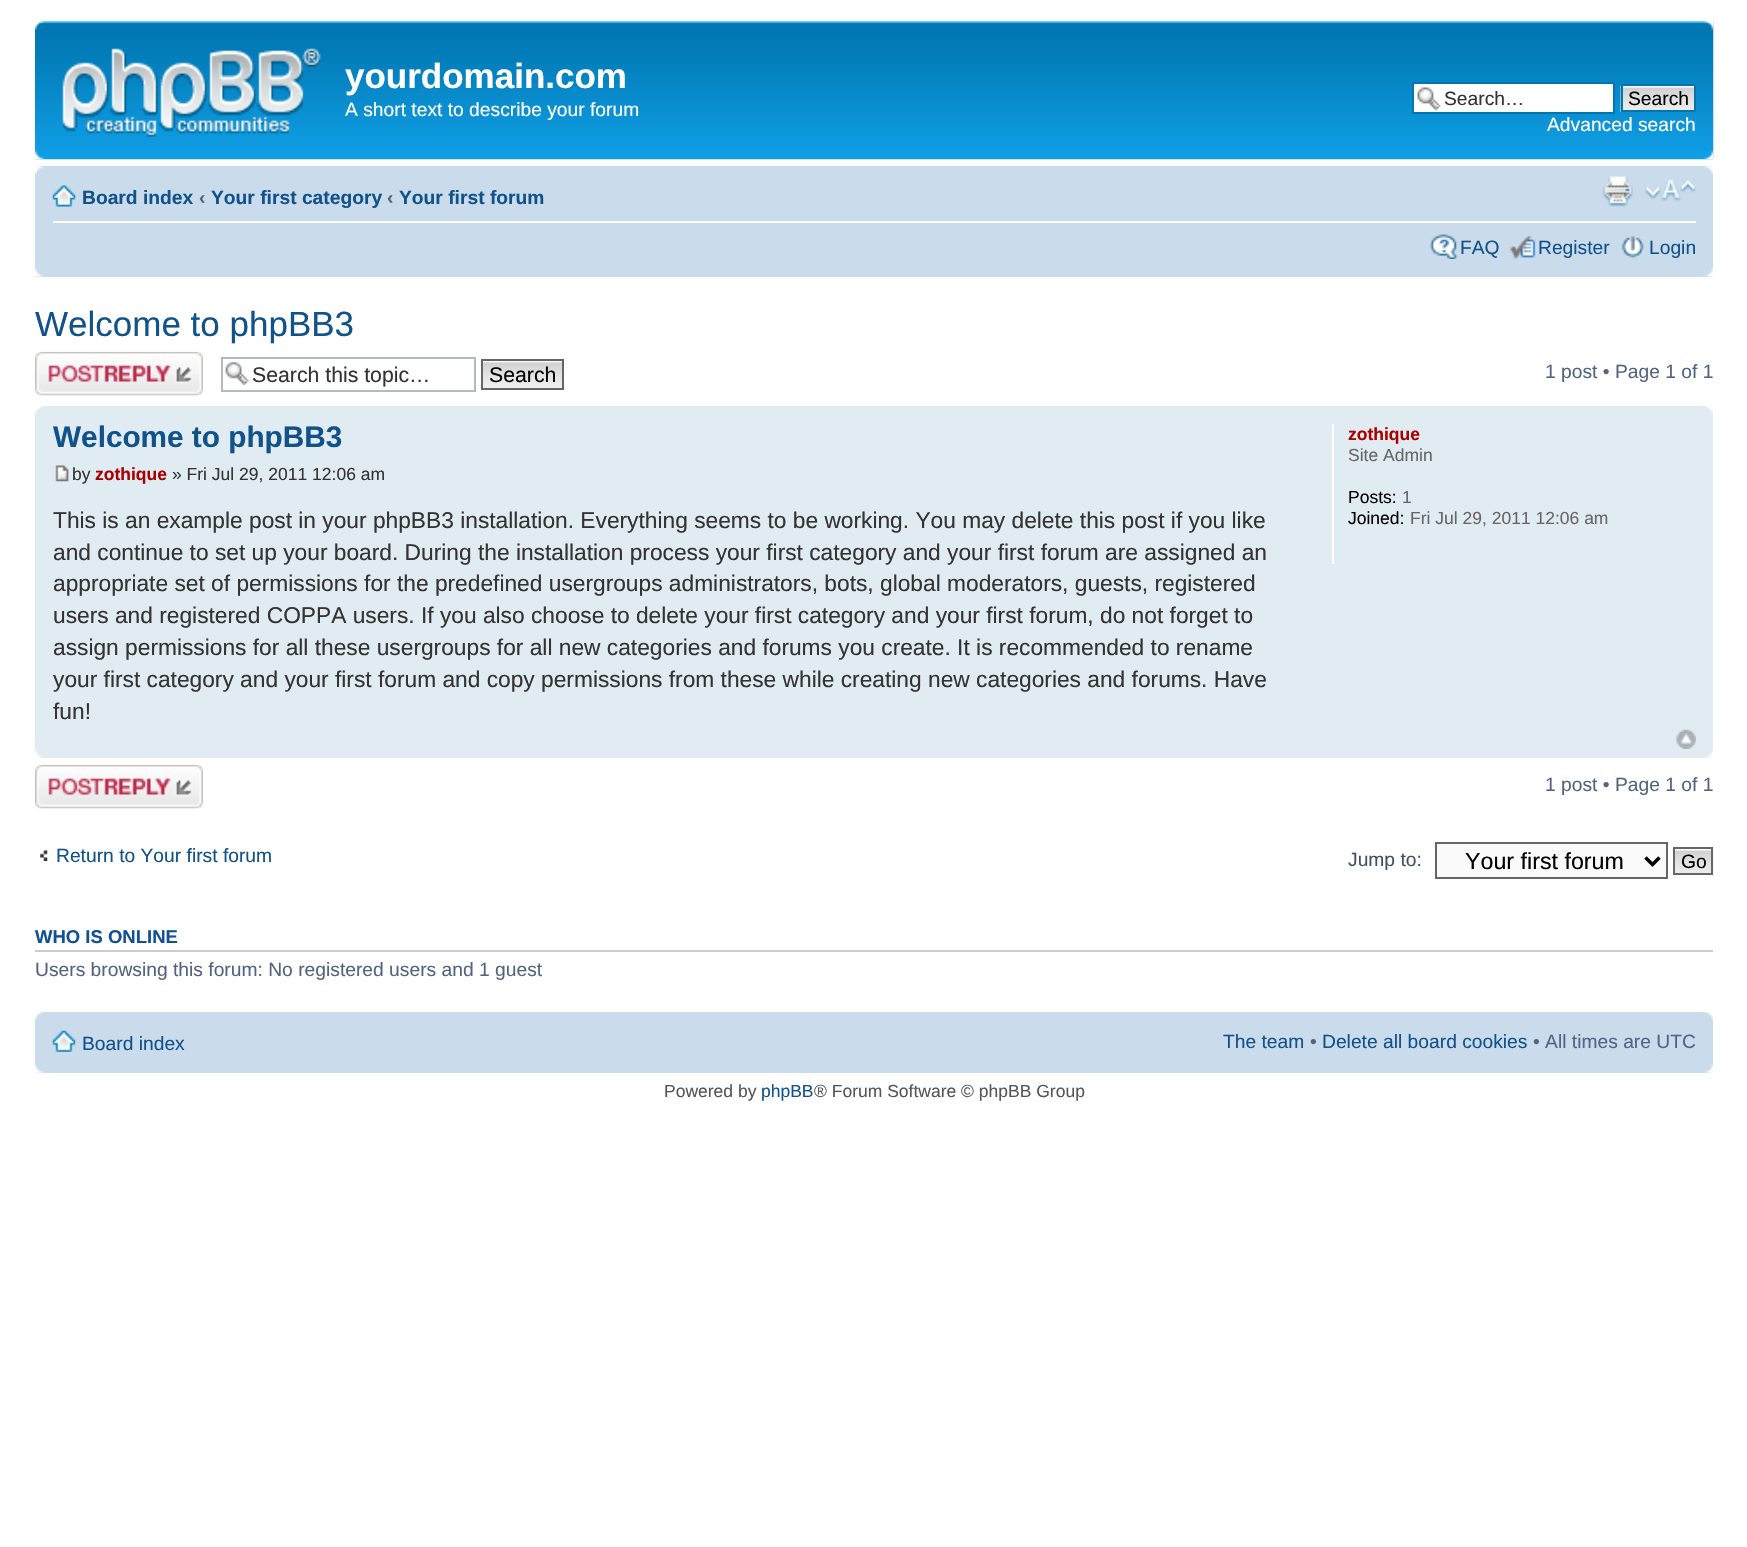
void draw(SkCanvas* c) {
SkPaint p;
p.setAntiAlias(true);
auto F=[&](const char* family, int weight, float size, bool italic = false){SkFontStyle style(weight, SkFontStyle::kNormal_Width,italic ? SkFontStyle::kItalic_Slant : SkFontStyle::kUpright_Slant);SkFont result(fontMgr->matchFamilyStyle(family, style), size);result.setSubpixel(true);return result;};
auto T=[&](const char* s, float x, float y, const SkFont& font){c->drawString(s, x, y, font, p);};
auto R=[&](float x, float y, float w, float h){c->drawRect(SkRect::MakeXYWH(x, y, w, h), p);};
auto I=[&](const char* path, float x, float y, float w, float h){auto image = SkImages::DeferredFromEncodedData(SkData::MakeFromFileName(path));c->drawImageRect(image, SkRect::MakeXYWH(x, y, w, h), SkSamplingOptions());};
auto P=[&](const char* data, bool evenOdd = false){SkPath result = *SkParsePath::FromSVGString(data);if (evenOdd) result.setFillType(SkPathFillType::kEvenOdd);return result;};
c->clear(0xffffffff);
I("1.png",35,21,1679,139);
I("2.png",35,21,10,9);
I("3.png",1704,21,10,9);
I("4.png",62,48,259,89);
auto f1 = F("Liberation Sans",700,35);
p.setColor(0xffffffff);
T("yourdomain.com",345,88,f1);
auto f2 = F("Liberation Sans",400,19.25);
T("A short text to describe your forum",345,116,f2);
R(1414,84,199,28);
I("5.png",1417,87,24,24);
p.setStroke(true);
p.setStrokeWidth(2);
p.setColor(0xff0075b0);
c->drawRect(SkRect::MakeXYWH(1413,83,201,30),p);
p.setStroke(false);
p.setColor(0xff333333);
T("Search…",1444,105,f2);
I("6.png",1620,85,74,27);
p.setStroke(true);
p.setColor(0xff0075b0);
c->drawRect(SkRect::MakeXYWH(1622,85,73,26),p);
p.setStroke(false);
p.setColor(0xff000000);
T("Search",1628,105,f2);
p.setColor(0xffffffff);
T("Advanced search",1547,131,f2);
I("7.png",35,150,10,10);
I("8.png",1704,150,10,10);
p.setColor(0xffcadceb);
R(35,166,1678,111);
I("9.png",35,166,9,9);
I("10.png",1704,166,9,9);
p.setColor(0xffffffff);
R(53,221,1643,2);
I("11.png",52,185,24,22);
auto f3 = F("Liberation Sans",700,19.25);
p.setColor(0xff105289);
T("Board index",82,204,f3);
p.setColor(0xff536482);
T("‹",199,204,f3);
p.setColor(0xff105289);
T("Your first category",211,204,f3);
p.setColor(0xff536482);
T("‹",387,204,f3);
p.setColor(0xff105289);
T("Your first forum",399,204,f3);
I("12.png",1602,176,31,31);
I("13.png",1645,180,51,22);
I("14.png",1430,234,28,25);
T("FAQ",1460,254,f2);
I("15.png",1509,235,27,24);
T("Register",1538,254,f2);
I("16.png",1621,236,23,22);
T("Login",1649,254,f2);
I("17.png",35,268,9,9);
I("18.png",1704,268,9,9);
auto f4 = F("Liberation Sans",400,35);
T("Welcome to phpBB3",35,336,f4);
I("19.png",35,351,168,45);
I("20.png",225,361,24,24);
p.setStroke(true);
p.setColor(0xffb4bac0);
c->drawRect(SkRect::MakeXYWH(222,358,253,33),p);
auto f5 = F("Liberation Sans",400,21.25);
p.setStroke(false);
p.setColor(0xff333333);
T("Search this topic…",252,382,f5);
p.setColor(0xfffafafa);
R(483,361,79,1);
I("21.png",481,362,83,29);
p.setStroke(true);
p.setColor(0xff666666);
c->drawRect(SkRect::MakeXYWH(482,360,81,29),p);
p.setStroke(false);
p.setColor(0xff000000);
T("Search",489,382,f5);
p.setColor(0xff536482);
T("1 post • Page 1 of 1",1545,378,f2);
p.setColor(0xffe1ebf2);
R(35,406,1678,352);
I("22.png",35,406,9,9);
I("23.png",1705,406,8,9);
auto f6 = F("Liberation Sans",700,29.75);
p.setColor(0xff105289);
T("Welcome to phpBB3",53,447,f6);
I("24.png",55,465,14,17);
auto f7 = F("Liberation Sans",400,17.5);
p.setColor(0xff333333);
T("by",72,480,f7);
auto f8 = F("Liberation Sans",700,17.5);
p.setColor(0xffaa0000);
T("zothique",95,480,f8);
p.setColor(0xff333333);
T("» Fri Jul 29, 2011 12:06 am",172,480,f7);
auto f9 = F("Liberation Sans",400,22.75);
T("This is an example post in your phpBB3 installation. Everything seems to be working. You may delete this post if you like",53,528,f9);
T("and continue to set up your board. During the installation process your first category and your first forum are assigned an",53,560,f9);
T("appropriate set of permissions for the predefined usergroups administrators, bots, global moderators, guests, registered",53,591,f9);
T("users and registered COPPA users. If you also choose to delete your first category and your first forum, do not forget to",53,623,f9);
T("assign permissions for all these usergroups for all new categories and forums you create. It is recommended to rename",53,655,f9);
T("your first category and your first forum and copy permissions from these while creating new categories and forums. Have",53,687,f9);
T("fun!",53,719,f9);
p.setColor(0xffffffff);
R(1332,424,2,140);
p.setColor(0xffaa0000);
T("zothique",1348,440,f8);
p.setColor(0xff666666);
T("Site Admin",1348,461,f7);
p.setColor(0xff000000);
T("Posts:",1348,503,f7);
p.setColor(0xff666666);
T("1",1402,503,f7);
p.setColor(0xff000000);
T("Joined:",1348,524,f7);
p.setColor(0xff666666);
T("Fri Jul 29, 2011 12:06 am",1410,524,f7);
I("25.png",1676,729,20,20);
I("26.png",35,749,8,9);
I("27.png",1705,749,8,9);
I("19.png",35,764,168,45);
p.setColor(0xff536482);
T("1 post • Page 1 of 1",1545,791,f2);
I("28.png",40,850,8,11);
p.setColor(0xff105289);
T("Return to Your first forum",56,862,f2);
p.setColor(0xff425067);
T("Jump to:",1348,866,f2);
p.setColor(0xfffafafa);
c->drawRect(SkRect::MakeXYWH(1436,843,231,35),p);
p.setStroke(true);
p.setColor(0xff666666);
c->drawRect(SkRect::MakeXYWH(1436,843,231,35),p);
p.setStrokeWidth(3.5);
p.setColor(0xff000000);
c->drawPath(P("M1645.5 857.5l7 7l7-7"),p);
auto f10 = F("Liberation Sans",400,23.25);
p.setStroke(false);
T("Your first forum",1465,869,f10);
I("29.png",1675,849,39,26);
p.setStroke(true);
p.setStrokeWidth(2);
p.setColor(0xff666666);
c->drawRect(SkRect::MakeXYWH(1674,848,38,26),p);
p.setStroke(false);
p.setColor(0xff000000);
T("Go",1681,868,f2);
p.setColor(0xffcccccc);
R(35,950,1678,2);
auto f11 = F("Liberation Sans",700,18.5);
p.setColor(0xff115098);
T("WHO IS ONLINE",35,943,f11);
p.setColor(0xff536482);
T("Users browsing this forum: No registered users and 1 guest",35,976,f2);
p.setColor(0xffcadceb);
R(35,1012,1678,61);
I("30.png",35,1012,9,8);
I("31.png",1704,1012,9,8);
I("32.png",52,1030,24,22);
p.setColor(0xff105289);
T("Board index",82,1050,f2);
T("The team",1223,1048,f2);
p.setColor(0xff536482);
T("•",1310,1048,f2);
p.setColor(0xff105289);
T("Delete all board cookies",1322,1048,f2);
p.setColor(0xff536482);
T("• All times are UTC",1533,1048,f2);
I("33.png",35,1064,9,9);
I("34.png",1704,1064,9,9);
p.setColor(0xff555555);
T("Powered by",664,1097,f7);
p.setColor(0xff105289);
T("phpBB",761,1097,f7);
p.setColor(0xff555555);
T("® Forum Software © phpBB Group",814,1097,f7);
}
